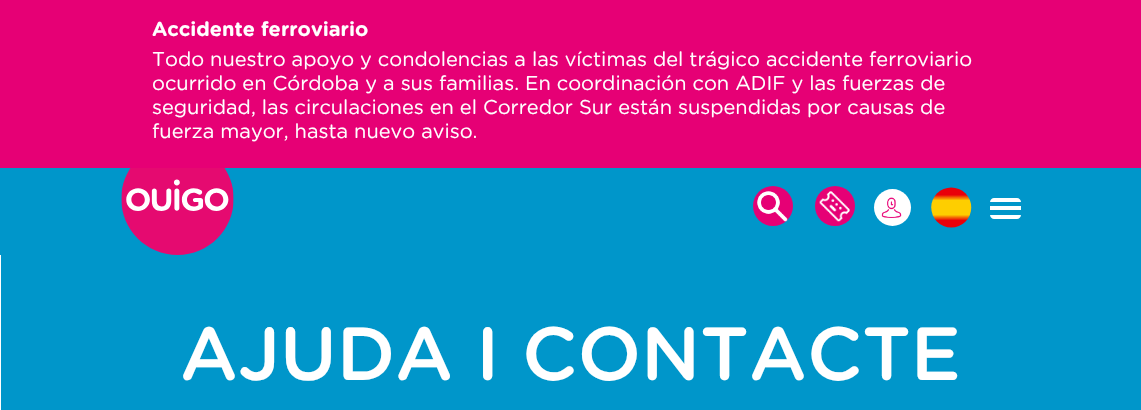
void draw(SkCanvas* c) {
SkPaint p;
p.setAntiAlias(true);
auto F=[&](const char* family, int weight, float size, bool italic = false){SkFontStyle style(weight, SkFontStyle::kNormal_Width,italic ? SkFontStyle::kItalic_Slant : SkFontStyle::kUpright_Slant);SkFont result(fontMgr->matchFamilyStyle(family, style), size);result.setSubpixel(true);return result;};
auto T=[&](const char* s, float x, float y, const SkFont& font){c->drawString(s, x, y, font, p);};
auto R=[&](float x, float y, float w, float h){c->drawRect(SkRect::MakeXYWH(x, y, w, h), p);};
auto I=[&](const char* path, float x, float y, float w, float h){auto image = SkImages::DeferredFromEncodedData(SkData::MakeFromFileName(path));c->drawImageRect(image, SkRect::MakeXYWH(x, y, w, h), SkSamplingOptions());};
auto P=[&](const char* data, bool evenOdd = false){SkPath result = *SkParsePath::FromSVGString(data);if (evenOdd) result.setFillType(SkPathFillType::kEvenOdd);return result;};
c->clear(0xffffffff);
p.setColor(0xffe60075);
R(0,0,1141,168);
auto f1 = F("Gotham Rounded",700,20);
p.setColor(0xffffffff);
T("Accidente ferroviario",152,36,f1);
auto f2 = F("Gotham Rounded",400,20);
T("Todo nuestro apoyo y condolencias a las víctimas del trágico accidente ferroviario",152,66,f2);
T("ocurrido en Córdoba y a sus familias. En coordinación con ADIF y las fuerzas de",152,90,f2);
T("seguridad, las circulaciones en el Corredor Sur están suspendidas por causas de",152,114,f2);
T("fuerza mayor, hasta nuevo aviso.",152,138,f2);
p.setColor(0xff0096ca);
R(0,168,1141,87);
I("1.png",121,168,113,87);
p.setColor(0xffe60075);
c->drawCircle(773,206,20,p);
I("2.png",757,191,31,31);
c->drawCircle(835,206,20,p);
I("3.png",819,191,31,31);
p.setColor(0xffffffff);
c->drawCircle(892.5,207.5,18.5,p);
I("4.png",881,197,21,21);
I("5.png",931,187,41,41);
R(990,206,31,4);
c->drawPath(P("M994 198h23c2 0 4 2 4 4h-31c0-2 2-4 4-4z"),p);
c->drawPath(P("M990 215h31c0 2-2 4-4 4h-23c-2 0-4-2-4-4z"),p);
p.setColor(0xff0096ca);
R(1,255,1140,155);
auto f3 = F("Gotham Rounded",500,75);
p.setColor(0xffffffff);
T("AJUDA I CONTACTE",180,380,f3);
}
